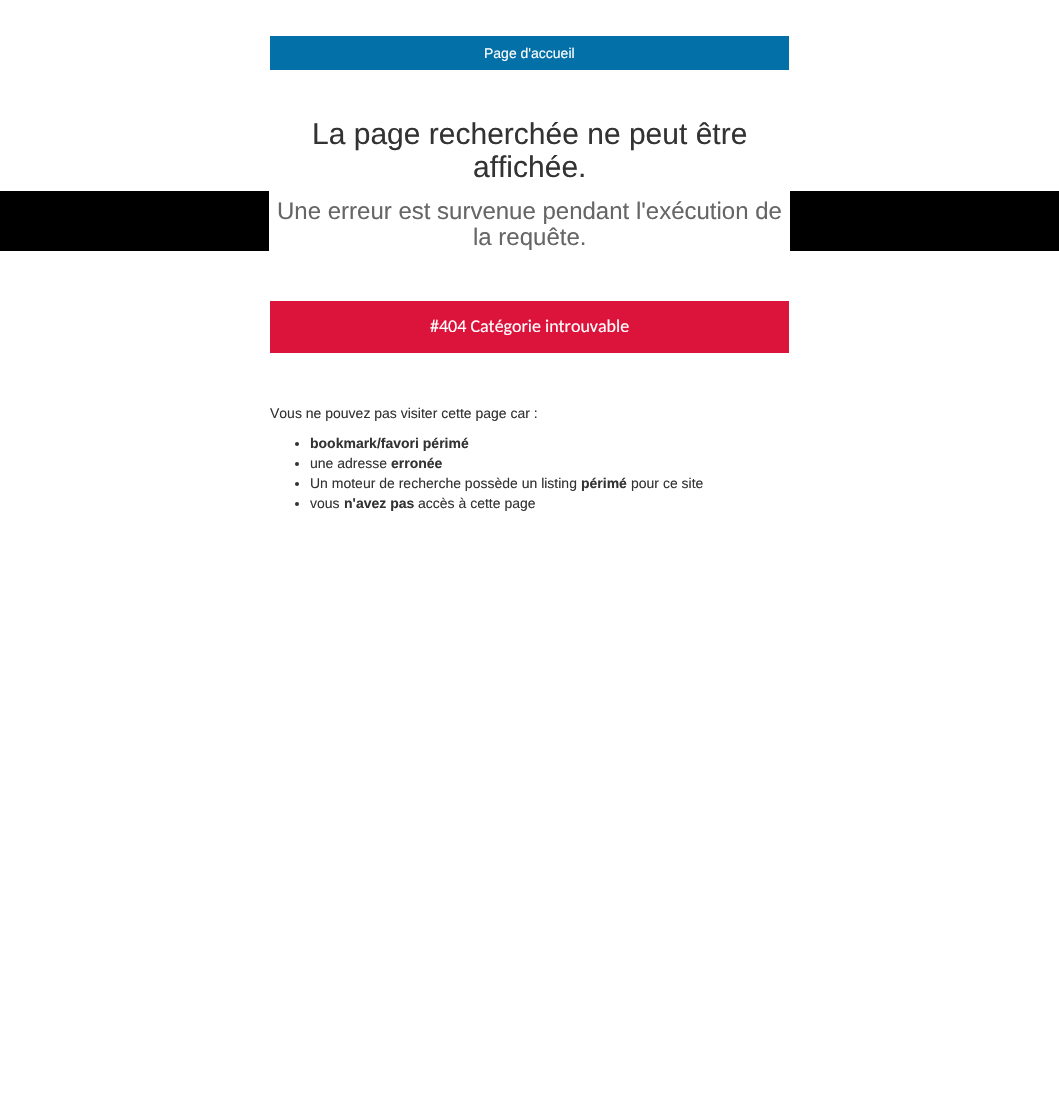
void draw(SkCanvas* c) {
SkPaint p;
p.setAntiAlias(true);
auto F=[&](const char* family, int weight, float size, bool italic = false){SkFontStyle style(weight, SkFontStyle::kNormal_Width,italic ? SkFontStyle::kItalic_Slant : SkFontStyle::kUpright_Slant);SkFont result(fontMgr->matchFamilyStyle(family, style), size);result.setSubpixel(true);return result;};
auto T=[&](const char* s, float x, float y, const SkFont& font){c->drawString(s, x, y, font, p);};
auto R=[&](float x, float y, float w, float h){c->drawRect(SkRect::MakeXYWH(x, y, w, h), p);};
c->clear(0xffffffff);
p.setColor(0xff000000);
R(0,191,1059,60);
p.setColor(0xff0370a7);
R(270,36,519,34);
auto f1 = F("Liberation Sans",400,14);
p.setColor(0xffffffff);
T("Page d'accueil",484,58,f1);
R(269,191,521,60);
auto f2 = F("Liberation Sans",400,30);
p.setColor(0xff333333);
T("La page recherchée ne peut être",312,144,f2);
T("affichée.",473,177,f2);
auto f3 = F("Liberation Sans",400,24);
p.setColor(0xff666666);
T("Une erreur est survenue pendant l'exécution de",277,219,f3);
T("la requête.",473,245,f3);
p.setColor(0xffdc143c);
R(270,301,519,52);
auto f4 = F("Carlito",400,18);
p.setColor(0xffffffff);
T("#404 Catégorie introuvable",430,332,f4);
p.setColor(0xff333333);
T("Vous ne pouvez pas visiter cette page car :",270,418,f1);
c->drawCircle(297,444,2,p);
auto f5 = F("Liberation Sans",700,14);
T("bookmark/favori périmé",310,448,f5);
c->drawCircle(297,464,2,p);
T("une adresse",310,468,f1);
T("erronée",391,468,f5);
c->drawCircle(297,484,2,p);
T("Un moteur de recherche possède un listing",310,488,f1);
T("périmé",581,488,f5);
T("pour ce site",631,488,f1);
c->drawCircle(297,504,2,p);
T("vous",310,508,f1);
T("n'avez pas",344,508,f5);
T("accès à cette page",418,508,f1);
}
